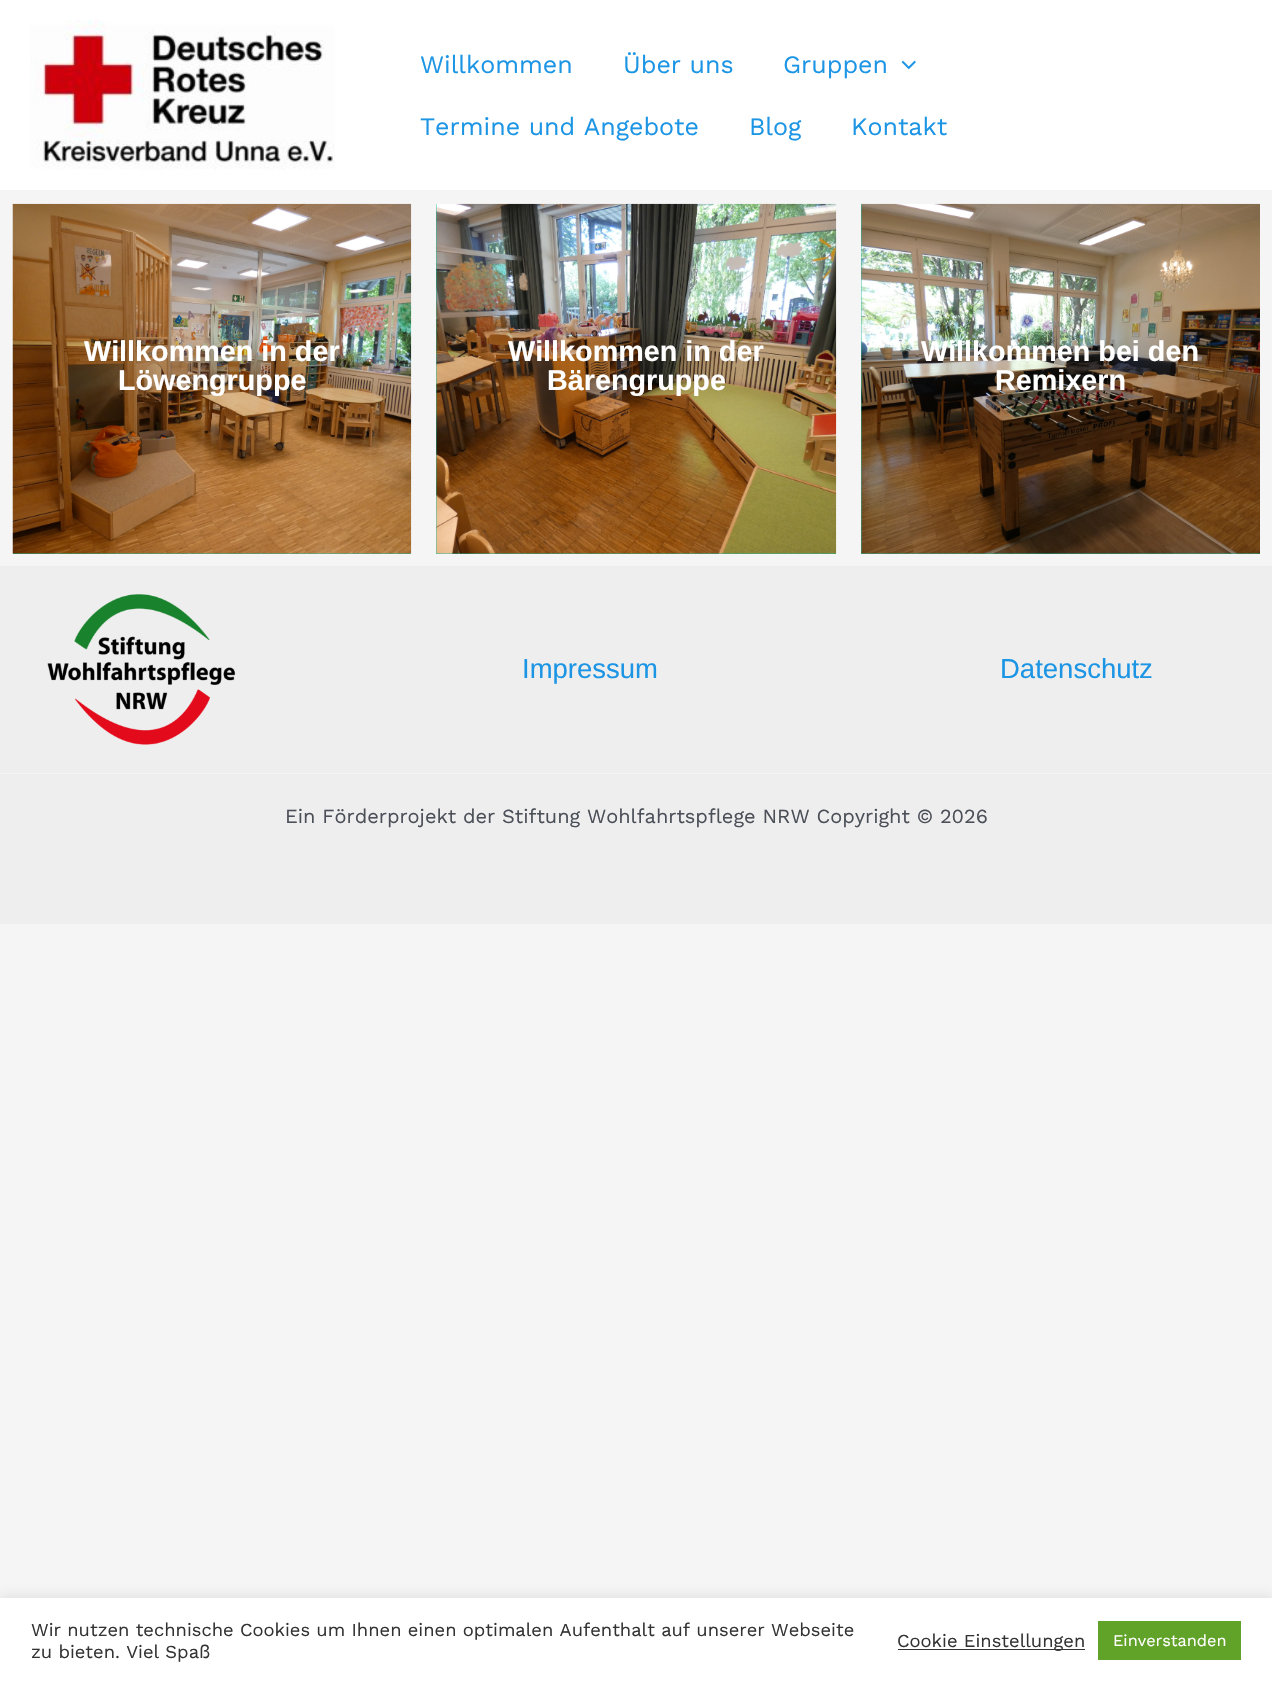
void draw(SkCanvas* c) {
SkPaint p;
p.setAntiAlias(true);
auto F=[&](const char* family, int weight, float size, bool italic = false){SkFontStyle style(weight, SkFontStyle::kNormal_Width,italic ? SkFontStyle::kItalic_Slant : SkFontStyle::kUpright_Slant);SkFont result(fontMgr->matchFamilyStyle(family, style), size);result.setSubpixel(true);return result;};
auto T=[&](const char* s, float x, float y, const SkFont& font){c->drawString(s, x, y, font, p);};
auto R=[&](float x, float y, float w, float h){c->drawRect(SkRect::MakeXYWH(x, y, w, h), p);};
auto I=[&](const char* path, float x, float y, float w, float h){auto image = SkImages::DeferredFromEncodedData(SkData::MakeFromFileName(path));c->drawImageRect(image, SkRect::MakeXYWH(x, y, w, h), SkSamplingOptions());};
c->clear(0xfff5f5f5);
p.setColor(0xffffffff);
R(0,0,1272,190);
p.setColor(0xfff2f5f7);
R(0,190,1272,1);
I("1.png",30,20,305,150);
auto f1 = F("Work Sans",400,25);
p.setColor(0xff1c95e5);
T("Willkommen",420,73,f1);
T("Über uns",623,73,f1);
T("Gruppen",783,73,f1);
I("2.png",901,60,15,10);
T("Termine und Angebote",420,135,f1);
T("Blog",749,135,f1);
T("Kontakt",851,135,f1);
p.setColor(0xff1abc9c);
R(13,553,398,1);
I("3.png",12,203,400,351);
auto f2 = F("Liberation Sans",700,28.75);
p.setColor(0xffffffff);
T("Willkommen in der",84,361,f2);
T("Löwengruppe",118,390,f2);
p.setColor(0xff1abc9c);
R(436,204,400,350);
I("4.png",436,203,401,351);
p.setColor(0xffffffff);
T("Willkommen in der",508,361,f2);
T("Bärengruppe",547,390,f2);
p.setColor(0xff1abc9c);
R(861,204,399,350);
I("5.png",861,203,399,351);
p.setColor(0xffffffff);
T("Willkommen bei den",921,361,f2);
T("Remixern",995,390,f2);
p.setColor(0xffeeeeee);
R(0,566,1272,207);
I("6.png",47,594,189,151);
auto f3 = F("Liberation Sans",400,27.5);
p.setColor(0xff1c95e5);
T("Impressum",522,678,f3);
T("Datenschutz",1000,678,f3);
p.setColor(0xffeeeeee);
R(0,774,1272,150);
p.setColor(0xfff2f5f7);
R(0,773,1272,1);
auto f4 = F("Work Sans",400,20);
p.setColor(0xff4b4f58);
T("Ein Förderprojekt der Stiftung Wohlfahrtspflege NRW Copyright © 2026",285,823,f4);
p.setColor(0x4dacabab);
p.setMaskFilter(SkMaskFilter::MakeBlur(kNormal_SkBlurStyle, 6));
c->drawRect(SkRect::MakeXYWH(0,1596,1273,87),p);
p.setMaskFilter(nullptr);
p.setColor(0xffffffff);
R(0,1598,1272,85);
auto f5 = F("Work Sans",400,18.35);
p.setColor(0xff333333);
T("Wir nutzen technische Cookies um Ihnen einen optimalen Aufenthalt auf unserer Webseite",31,1636,f5);
T("zu bieten. Viel Spaß",31,1658,f5);
R(898,1649,187,1);
T("Cookie Einstellungen",897,1647,f5);
p.setColor(0xff61a229);
R(1098,1621,143,39);
auto f6 = F("Work Sans",400,16.25);
p.setColor(0xffffffff);
T("Einverstanden",1113,1646,f6);
}
